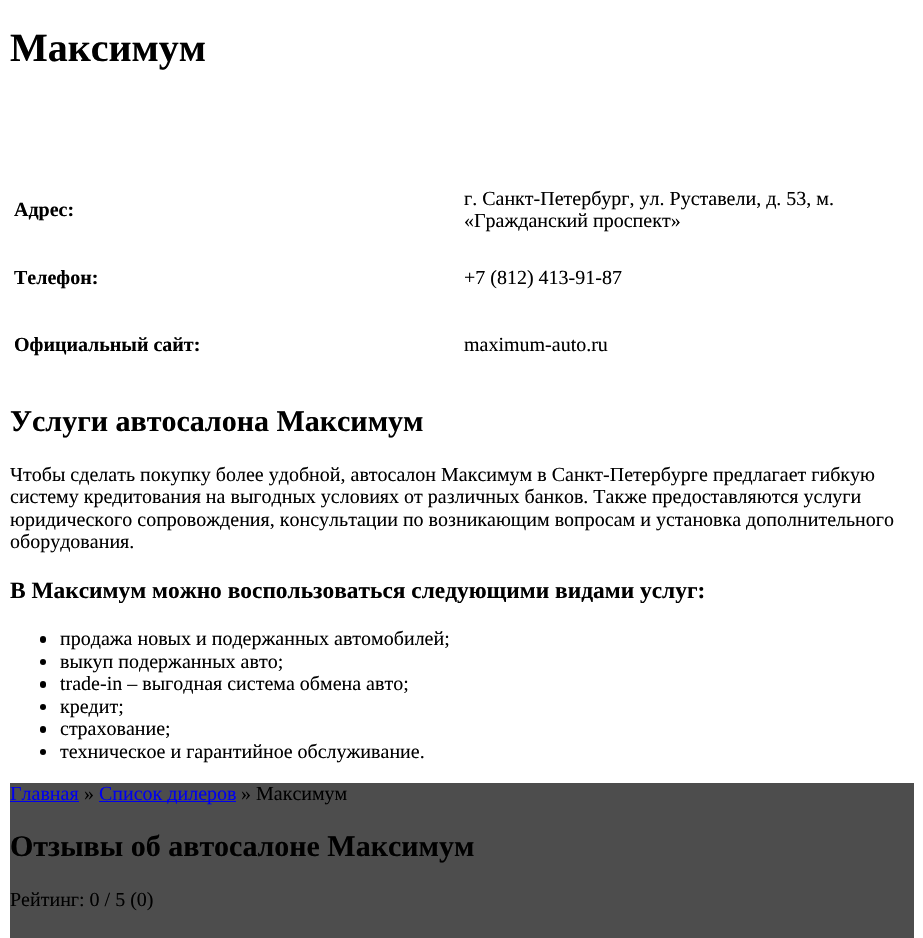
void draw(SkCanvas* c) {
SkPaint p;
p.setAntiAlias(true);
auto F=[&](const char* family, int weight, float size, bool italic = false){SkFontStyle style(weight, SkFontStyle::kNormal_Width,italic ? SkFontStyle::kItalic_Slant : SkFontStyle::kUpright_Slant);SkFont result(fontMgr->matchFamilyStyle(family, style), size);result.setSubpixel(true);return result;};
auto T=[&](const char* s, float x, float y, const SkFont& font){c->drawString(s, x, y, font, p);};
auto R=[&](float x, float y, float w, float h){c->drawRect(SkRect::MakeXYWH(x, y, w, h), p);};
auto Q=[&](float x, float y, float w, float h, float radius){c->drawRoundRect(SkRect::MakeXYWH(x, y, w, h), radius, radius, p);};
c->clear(0xffffffff);
auto f1 = F("Liberation Serif",700,40);
p.setColor(0xff000000);
T("Максимум",10,61,f1);
auto f2 = F("Liberation Serif",700,20);
T("Адрес:",14,216,f2);
auto f3 = F("Liberation Serif",400,20);
T("г. Санкт-Петербург, ул. Руставели, д. 53, м.",464,205,f3);
T("«Гражданский проспект»",464,227,f3);
T("Телефон:",14,284,f2);
T("+7 (812) 413-91-87",464,284,f3);
T("Официальный сайт:",14,351,f2);
T("maximum-auto.ru",464,351,f3);
auto f4 = F("Liberation Serif",700,30);
T("Услуги автосалона Максимум",10,431,f4);
T("Чтобы сделать покупку более удобной, автосалон Максимум в Санкт-Петербурге предлагает гибкую",10,481,f3);
T("систему кредитования на выгодных условиях от различных банков. Также предоставляются услуги",10,503,f3);
T("юридического сопровождения, консультации по возникающим вопросам и установка дополнительного",10,526,f3);
T("оборудования.",10,548,f3);
auto f5 = F("Liberation Serif",700,23.4);
T("В Максимум можно воспользоваться следующими видами услуг:",10,598,f5);
Q(40,636,6,7,3);
T("продажа новых и подержанных автомобилей;",60,645,f3);
c->drawCircle(43,662,3,p);
T("выкуп подержанных авто;",60,668,f3);
Q(40,681,6,7,3);
T("trade-in – выгодная система обмена авто;",60,690,f3);
c->drawCircle(43,707,3,p);
T("кредит;",60,713,f3);
Q(40,726,6,7,3);
T("страхование;",60,735,f3);
c->drawCircle(43,752,3,p);
T("техническое и гарантийное обслуживание.",60,758,f3);
p.setColor(0xff4d4d4d);
R(10,783,904,155);
p.setColor(0xff0000ee);
T("Главная",10,800,f3);
R(10,801,69,1);
p.setColor(0xff000000);
T("»",84,800,f3);
p.setColor(0xff0000ee);
R(99,801,137,1);
T("Список дилеров",99,800,f3);
p.setColor(0xff000000);
T("» Максимум",241,800,f3);
T("Отзывы об автосалоне Максимум",10,856,f4);
T("Рейтинг: 0 / 5 (0)",10,906,f3);
}
